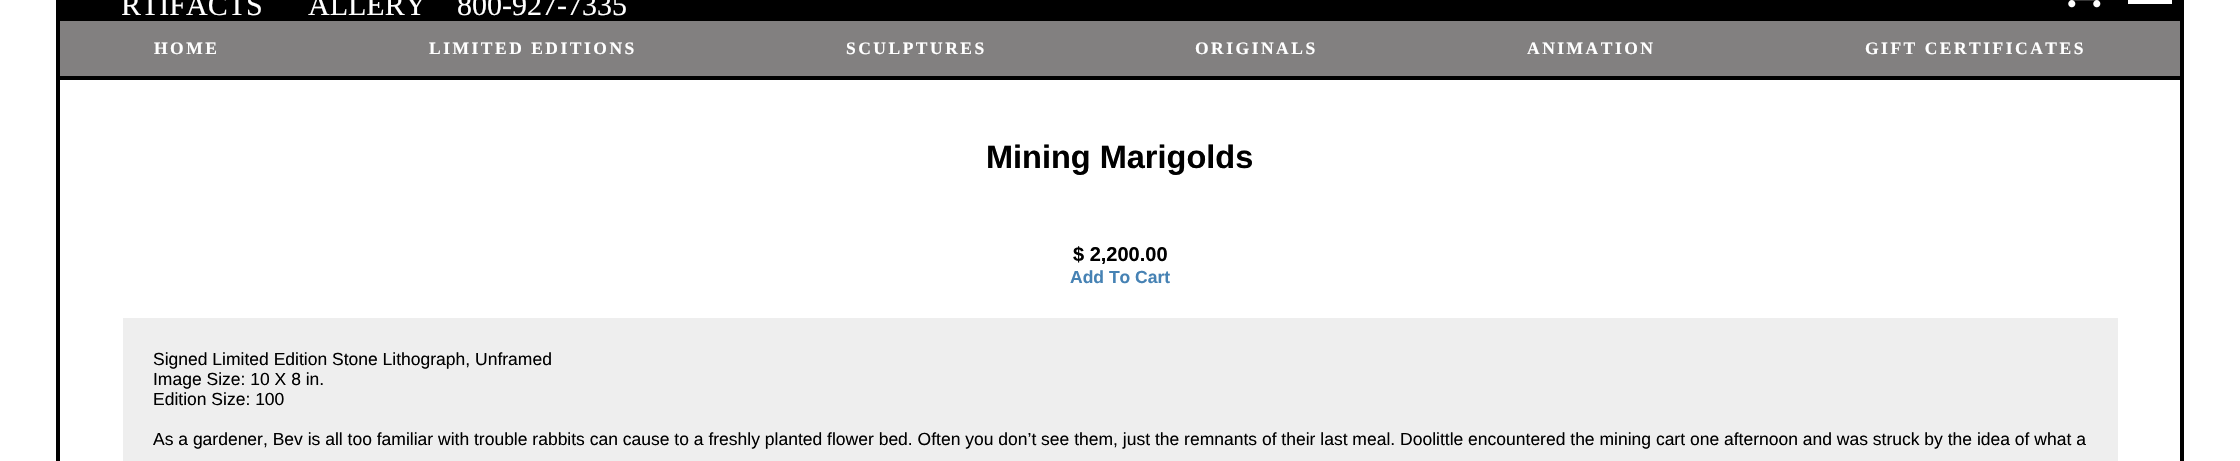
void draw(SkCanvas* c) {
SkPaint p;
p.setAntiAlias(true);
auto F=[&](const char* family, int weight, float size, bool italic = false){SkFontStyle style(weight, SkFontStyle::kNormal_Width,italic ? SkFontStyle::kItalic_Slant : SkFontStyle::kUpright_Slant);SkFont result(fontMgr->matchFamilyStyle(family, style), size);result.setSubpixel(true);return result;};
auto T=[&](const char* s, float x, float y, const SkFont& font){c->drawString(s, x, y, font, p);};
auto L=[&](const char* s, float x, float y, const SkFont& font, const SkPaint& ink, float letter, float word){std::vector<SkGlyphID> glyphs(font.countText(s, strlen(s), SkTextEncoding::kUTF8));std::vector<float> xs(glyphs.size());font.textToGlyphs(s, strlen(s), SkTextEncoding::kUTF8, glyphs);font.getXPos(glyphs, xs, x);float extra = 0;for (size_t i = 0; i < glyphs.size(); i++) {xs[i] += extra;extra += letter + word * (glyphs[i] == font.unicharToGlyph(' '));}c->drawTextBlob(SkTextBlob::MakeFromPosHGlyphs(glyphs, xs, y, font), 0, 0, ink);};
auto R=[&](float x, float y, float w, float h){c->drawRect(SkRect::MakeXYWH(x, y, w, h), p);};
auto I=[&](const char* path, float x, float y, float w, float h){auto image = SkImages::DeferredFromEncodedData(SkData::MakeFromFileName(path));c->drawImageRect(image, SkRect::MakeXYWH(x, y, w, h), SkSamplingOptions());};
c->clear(0xffffffff);
p.setColor(0xff000000);
R(56,0,2128,21);
auto f1 = F("Liberation Serif",400,30);
p.setColor(0xffffffff);
T("RTIFACTS",121,15,f1);
T("ALLERY",308,15,f1);
T("800-927-7335",457,15,f1);
I("1.png",2068,0,33,8);
R(2128,0,44,4);
p.setColor(0xff828080);
R(60,21,2120,55);
p.setColor(0xff000000);
R(2180,21,4,440);
R(56,76,2128,4);
R(56,21,4,440);
auto f2 = F("Liberation Serif",700,17.5);
p.setColor(0xffffffff);
L("HOME",154,54,f2,p,2.5,0);
L("LIMITED EDITIONS",429,54,f2,p,2.5,0);
L("SCULPTURES",846,54,f2,p,2.5,0);
L("ORIGINALS",1195,54,f2,p,2.5,0);
L("ANIMATION",1527,54,f2,p,2.5,0);
L("GIFT CERTIFICATES",1865,54,f2,p,2.5,0);
auto f3 = F("Liberation Sans",700,32.5);
p.setColor(0xff000000);
T("Mining Marigolds",986,168,f3);
auto f4 = F("Liberation Sans",700,20);
T("$ 2,200.00",1073,261,f4);
auto f5 = F("Liberation Sans",700,17.5);
p.setColor(0xff4682b4);
T("Add To Cart",1070,283,f5);
p.setColor(0xffeeeeee);
R(123,318,1995,143);
auto f6 = F("Liberation Sans",400,17.5);
p.setColor(0xff000000);
T("Signed Limited Edition Stone Lithograph, Unframed",153,365,f6);
T("Image Size: 10 X 8 in.",153,385,f6);
T("Edition Size: 100",153,405,f6);
T("As a gardener, Bev is all too familiar with trouble rabbits can cause to a freshly planted flower bed. Often you don’t see them, just the remnants of their last meal. Doolittle encountered the mining cart one afternoon and was struck by the idea of what a",153,445,f6);
}
